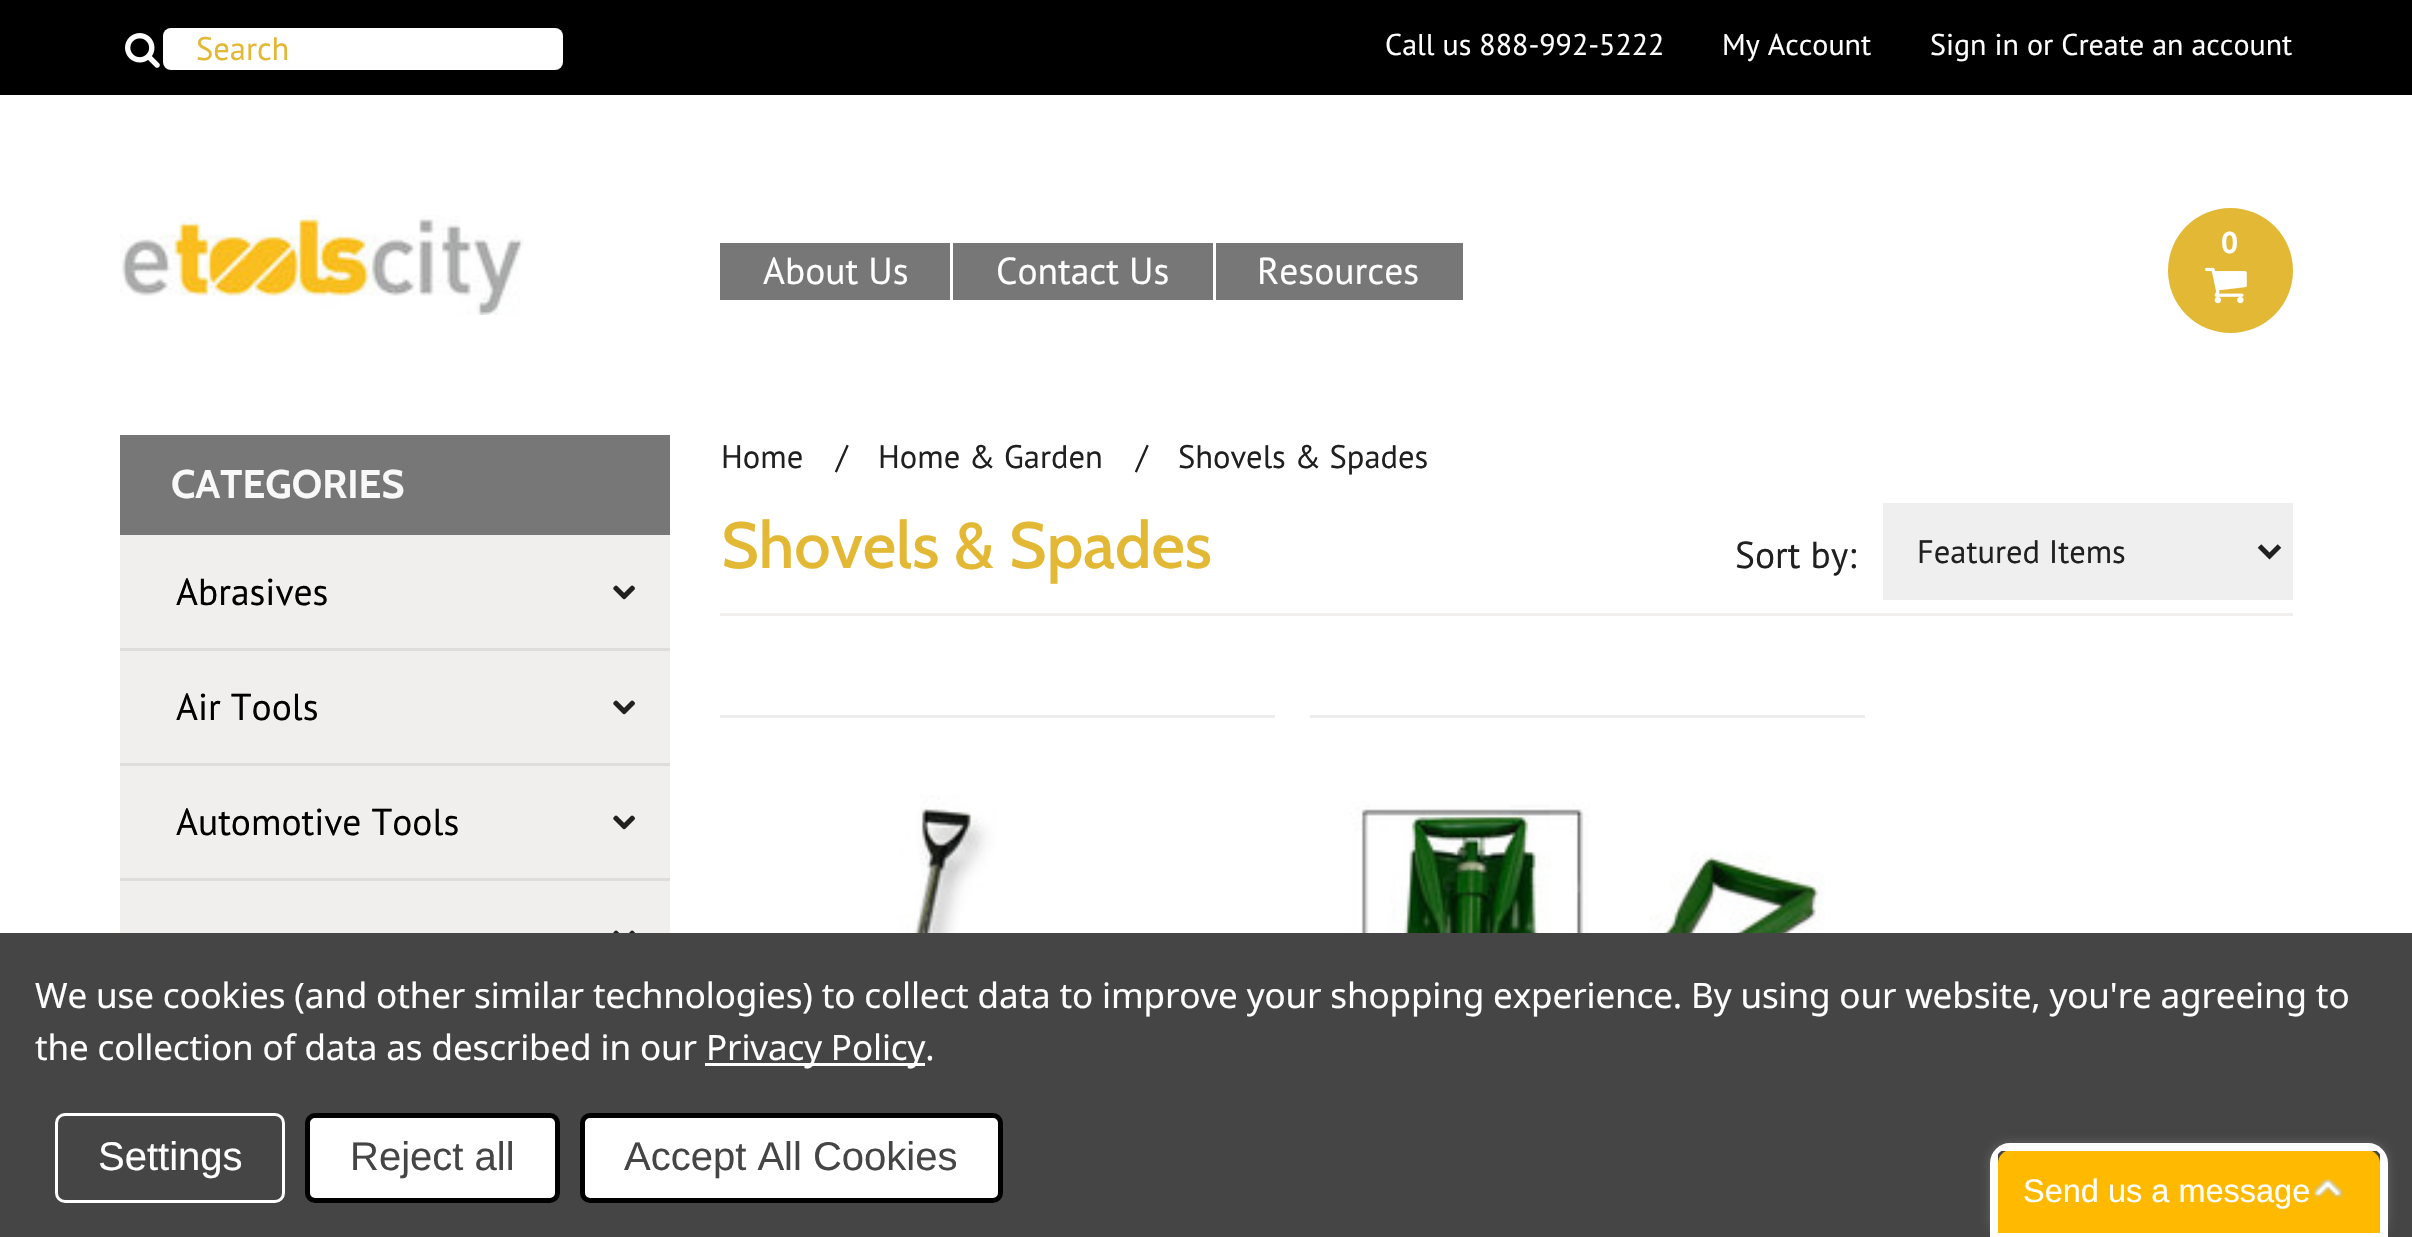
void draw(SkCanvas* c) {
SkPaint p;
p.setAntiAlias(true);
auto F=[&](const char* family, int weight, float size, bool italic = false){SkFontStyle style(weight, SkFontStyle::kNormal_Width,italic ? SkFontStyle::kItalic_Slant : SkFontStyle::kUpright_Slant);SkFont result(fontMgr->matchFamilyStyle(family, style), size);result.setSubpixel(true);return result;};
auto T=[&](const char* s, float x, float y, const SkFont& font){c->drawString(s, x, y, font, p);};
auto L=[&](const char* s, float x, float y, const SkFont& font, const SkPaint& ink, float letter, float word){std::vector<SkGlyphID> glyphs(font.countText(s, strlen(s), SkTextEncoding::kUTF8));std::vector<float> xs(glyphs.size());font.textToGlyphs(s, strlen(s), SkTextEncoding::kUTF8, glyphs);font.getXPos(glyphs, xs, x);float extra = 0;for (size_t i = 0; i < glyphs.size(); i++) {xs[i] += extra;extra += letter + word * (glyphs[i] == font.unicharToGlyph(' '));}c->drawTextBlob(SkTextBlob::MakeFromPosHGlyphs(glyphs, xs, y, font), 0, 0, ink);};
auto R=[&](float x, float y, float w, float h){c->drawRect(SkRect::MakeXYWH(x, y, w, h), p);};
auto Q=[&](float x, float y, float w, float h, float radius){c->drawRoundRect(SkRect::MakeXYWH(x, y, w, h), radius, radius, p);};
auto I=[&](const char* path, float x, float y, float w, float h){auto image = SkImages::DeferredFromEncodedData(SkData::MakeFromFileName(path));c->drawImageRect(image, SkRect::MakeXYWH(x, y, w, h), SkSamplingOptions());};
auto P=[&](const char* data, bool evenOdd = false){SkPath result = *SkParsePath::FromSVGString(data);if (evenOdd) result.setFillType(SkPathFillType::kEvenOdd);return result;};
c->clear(0xffffffff);
p.setColor(0xff000000);
R(0,0,2412,95);
I("1.png",125,33,35,35);
p.setColor(0xffffffff);
Q(163,28,400,42,8);
auto f1 = F("PT Sans",400,32.5);
p.setColor(0xffe3b834);
T("Search",196,60,f1);
auto f2 = F("PT Sans",400,30);
p.setColor(0xffffffff);
T("Call us 888-992-5222",1385,55,f2);
T("My Account",1722,55,f2);
T("Sign in",1930,55,f2);
T("or Create an account",2027,55,f2);
I("2.png",120,215,404,100);
p.setColor(0xffe3b834);
c->drawCircle(2230.5,270.5,62.5,p);
auto f3 = F("PT Sans",700,30);
p.setColor(0xffffffff);
T("0",2221,253,f3);
I("3.png",2205,267,42,37);
p.setColor(0xff777777);
R(720,243,743,57);
p.setColor(0xffffffff);
R(950,243,3,57);
auto f4 = F("PT Sans",400,37.5);
T("About Us",763,284,f4);
R(1213,243,3,57);
T("Contact Us",996,284,f4);
T("Resources",1257,284,f4);
p.setColor(0xfff0efee);
R(120,535,550,398);
p.setColor(0xff777777);
R(120,435,550,100);
auto f5 = F("Cabin",700,40);
p.setColor(0xfff8f8f8);
T("CATEGORIES",171,498,f5);
p.setColor(0xffdfdddb);
R(120,648,550,3);
p.setColor(0xff000000);
T("Abrasives",176,605,f4);
I("4.png",613,585,22,15);
p.setColor(0xffdfdddb);
R(120,763,550,3);
p.setColor(0xff000000);
T("Air Tools",176,720,f4);
I("4.png",613,700,22,15);
p.setColor(0xffdfdddb);
R(120,878,550,3);
p.setColor(0xff000000);
T("Automotive Tools",176,835,f4);
I("4.png",613,815,22,15);
I("5.png",613,930,22,3);
p.setColor(0xff202020);
T("Home",721,468,f1);
T("/",836,468,f1);
T("Home & Garden",878,468,f1);
T("/",1136,468,f1);
T("Shovels & Spades",1178,468,f1);
p.setColor(0xfff0efee);
R(720,613,1573,3);
auto f6 = F("Cabin",500,65);
p.setColor(0xffe3b834);
T("Shovels & Spades",721,568,f6);
p.setColor(0xff202020);
T("Sort by:",1735,568,f4);
p.setColor(0xffefefef);
R(1883,503,410,97);
p.setStroke(true);
p.setStrokeWidth(5);
p.setColor(0xff202020);
c->drawPath(P("M2259.5 546l10 10l10-10"),p);
p.setStroke(false);
T("Featured Items",1917,563,f1);
p.setColor(0xffededed);
R(720,715,555,3);
I("6.png",781,795,454,138);
R(1310,715,555,3);
I("7.png",1350,801,475,132);
p.setColor(0xff454545);
R(0,933,2412,304);
auto f7 = F("Noto Sans",400,35);
p.setColor(0xffffffff);
L("We use cookies (and other similar technologies) to collect data to improve your shopping experience. By using our website, you're agreeing to",35,1008,f7,p,-.12,0);
L("the collection of data as described in our",35,1060,f7,p,-.12,0);
R(705,1063,220,3);
L("Privacy Policy.",706,1060,f7,p,-.12,0);
p.setStroke(true);
p.setStrokeWidth(3);
c->drawRoundRect(SkRect::MakeXYWH(56.5,1114.5,227,87),8.5,8.5,p);
auto f8 = F("Liberation Sans",400,40);
p.setStroke(false);
T("Settings",98,1170,f8);
c->drawRoundRect(SkRect::MakeXYWH(307.5,1115.5,250,85),7.5,7.5,p);
p.setStroke(true);
p.setStrokeWidth(5);
p.setColor(0xff000000);
c->drawRoundRect(SkRect::MakeXYWH(307.5,1115.5,250,85),7.5,7.5,p);
p.setStroke(false);
p.setColor(0xff454545);
T("Reject all",350,1170,f8);
p.setColor(0xffffffff);
c->drawRoundRect(SkRect::MakeXYWH(582.5,1115.5,418,85),7.5,7.5,p);
p.setStroke(true);
p.setColor(0xff000000);
c->drawRoundRect(SkRect::MakeXYWH(582.5,1115.5,418,85),7.5,7.5,p);
p.setStroke(false);
p.setColor(0xff454545);
T("Accept All Cookies",624,1170,f8);
c->save();
c->clipPath(P("M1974 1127h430v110h-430zm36 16h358c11 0 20 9 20 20v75h-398v-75c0-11 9-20 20-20z",true),true);
p.setColor(0xff666666);
p.setMaskFilter(SkMaskFilter::MakeBlur(kNormal_SkBlurStyle, 5));
c->drawRoundRect(SkRect::MakeXYWH(1990,1143,398,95),20,20,p);
p.setMaskFilter(nullptr);
c->restore();
p.setColor(0xffffba00);
c->drawPath(P("M2011 1150h356c7 0 13 6 13 13v70h-382v-70c0-7 6-13 13-13z"),p);
I("8.png",2314,1179,30,20);
p.setStroke(true);
p.setColor(0xffffffff);
c->drawPath(P("M2010 1145.5h358c9.5 0 17.5 8 17.5 17.5v72.5h-393v-72.5c0-9.5 8-17.5 17.5-17.5z"),p);
p.setStroke(false);
R(2000,1148,378,3);
R(2380,1153,3,84);
R(1995,1153,3,84);
auto f9 = F("Liberation Sans",400,32.5);
T("Send us a message",2023,1202,f9);
}
